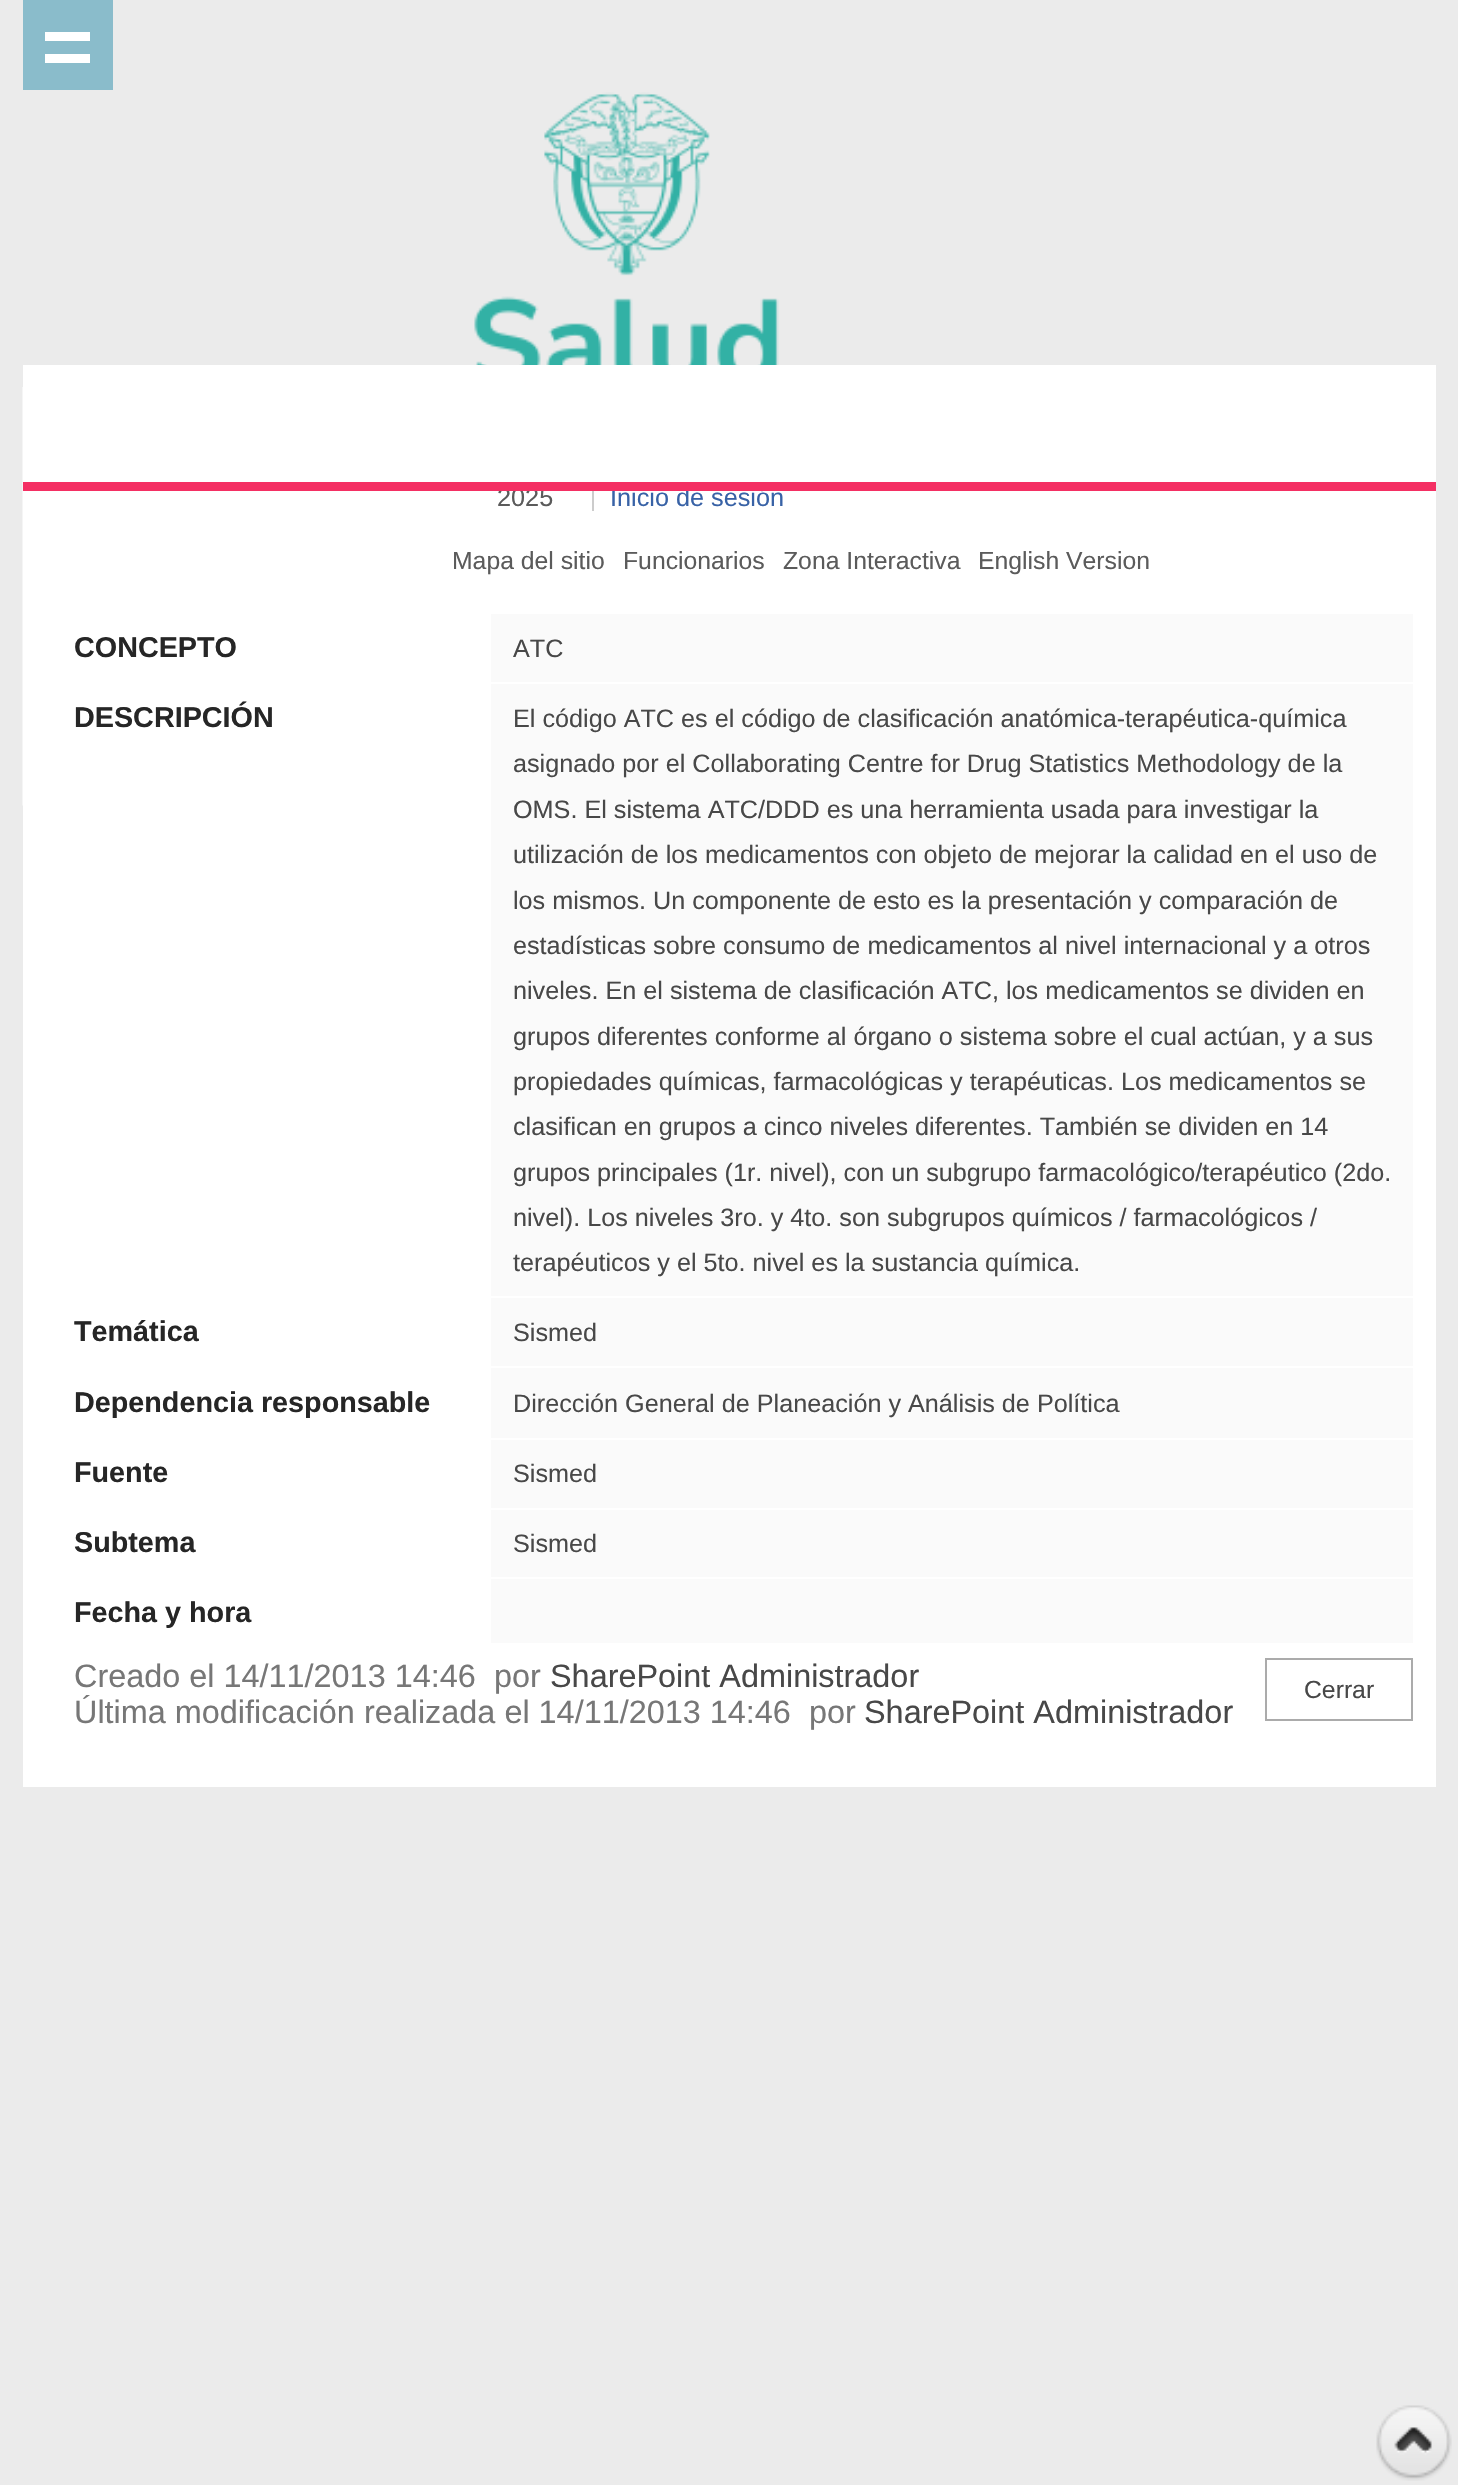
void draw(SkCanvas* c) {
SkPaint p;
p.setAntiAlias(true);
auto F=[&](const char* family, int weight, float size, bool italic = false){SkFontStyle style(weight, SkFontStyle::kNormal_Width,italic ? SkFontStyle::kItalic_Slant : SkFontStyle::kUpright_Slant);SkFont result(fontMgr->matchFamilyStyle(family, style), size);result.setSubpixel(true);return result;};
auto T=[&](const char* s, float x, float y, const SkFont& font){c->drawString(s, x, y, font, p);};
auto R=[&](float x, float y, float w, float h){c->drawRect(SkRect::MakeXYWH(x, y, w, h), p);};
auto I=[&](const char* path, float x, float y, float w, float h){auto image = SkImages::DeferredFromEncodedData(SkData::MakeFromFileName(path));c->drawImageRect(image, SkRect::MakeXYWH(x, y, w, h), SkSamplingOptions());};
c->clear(0xffebebeb);
p.setColor(0xff8abccb);
R(23,0,90,90);
p.setColor(0xffffffff);
R(45,32,45,9);
R(45,54,45,9);
R(23,365,1413,117);
R(23,491,1413,1296);
auto f1 = F("Liberation Sans",400,25.25);
p.setColor(0xff5b5b5b);
T("2025",497,506,f1);
p.setColor(0xffcccccc);
R(592,484,2,27);
p.setColor(0xff3862a6);
T("Inicio de sesión",610,506,f1);
p.setColor(0xfff42f63);
R(23,482,1413,9);
I("1.png",474,92,305,273);
auto f2 = F("Liberation Sans",400,24.75);
p.setColor(0xff5b5b5b);
T("Mapa del sitio",452,569,f2);
T("Funcionarios",623,569,f2);
T("Zona Interactiva",783,569,f2);
T("English Version",978,569,f2);
I("2.png",22,387,1,419);
auto f3 = F("Liberation Sans",700,28.75);
p.setColor(0xff262626);
T("CONCEPTO",74,657,f3);
p.setColor(0xfffafafa);
R(491,614,922,68);
auto f4 = F("Liberation Sans",400,25.2);
p.setColor(0xff484848);
T("ATC",513,657,f4);
p.setColor(0xff262626);
T("DESCRIPCIÓN",74,727,f3);
p.setColor(0xfffafafa);
R(491,684,922,612);
p.setColor(0xff484848);
T("El código ATC es el código de clasificación anatómica-terapéutica-química",513,727,f4);
T("asignado por el Collaborating Centre for Drug Statistics Methodology de la",513,772,f4);
T("OMS. El sistema ATC/DDD es una herramienta usada para investigar la",513,818,f4);
T("utilización de los medicamentos con objeto de mejorar la calidad en el uso de",513,863,f4);
T("los mismos. Un componente de esto es la presentación y comparación de",513,909,f4);
T("estadísticas sobre consumo de medicamentos al nivel internacional y a otros",513,954,f4);
T("niveles. En el sistema de clasificación ATC, los medicamentos se dividen en",513,999,f4);
T("grupos diferentes conforme al órgano o sistema sobre el cual actúan, y a sus",513,1045,f4);
T("propiedades químicas, farmacológicas y terapéuticas. Los medicamentos se",513,1090,f4);
T("clasifican en grupos a cinco niveles diferentes. También se dividen en 14",513,1135,f4);
T("grupos principales (1r. nivel), con un subgrupo farmacológico/terapéutico (2do.",513,1181,f4);
T("nivel). Los niveles 3ro. y 4to. son subgrupos químicos / farmacológicos /",513,1226,f4);
T("terapéuticos y el 5to. nivel es la sustancia química.",513,1271,f4);
p.setColor(0xff262626);
T("Temática",74,1341,f3);
p.setColor(0xfffafafa);
R(491,1298,922,68);
p.setColor(0xff484848);
T("Sismed",513,1341,f4);
p.setColor(0xff262626);
T("Dependencia responsable",74,1412,f3);
p.setColor(0xfffafafa);
R(491,1368,922,70);
p.setColor(0xff484848);
T("Dirección General de Planeación y Análisis de Política",513,1412,f4);
p.setColor(0xff262626);
T("Fuente",74,1482,f3);
p.setColor(0xfffafafa);
R(491,1440,922,68);
p.setColor(0xff484848);
T("Sismed",513,1482,f4);
p.setColor(0xff262626);
T("Subtema",74,1552,f3);
p.setColor(0xfffafafa);
R(491,1510,922,67);
p.setColor(0xff484848);
T("Sismed",513,1552,f4);
p.setColor(0xff262626);
T("Fecha y hora",74,1622,f3);
p.setColor(0xfffafafa);
R(491,1579,922,64);
auto f5 = F("Liberation Sans",400,32.4);
p.setColor(0xff777777);
T("Creado el 14/11/2013 14:46",74,1687,f5);
T("por",494,1687,f5);
p.setColor(0xff484848);
T("SharePoint Administrador",550,1687,f5);
p.setColor(0xff777777);
T("Última modificación realizada el 14/11/2013 14:46",74,1723,f5);
T("por",809,1723,f5);
p.setColor(0xff484848);
T("SharePoint Administrador",864,1723,f5);
p.setStroke(true);
p.setStrokeWidth(2);
p.setColor(0xffababab);
c->drawRect(SkRect::MakeXYWH(1266,1659,146,61),p);
p.setStroke(false);
p.setColor(0xff484848);
T("Cerrar",1304,1698,f2);
I("3.png",1376,2405,76,76);
}
